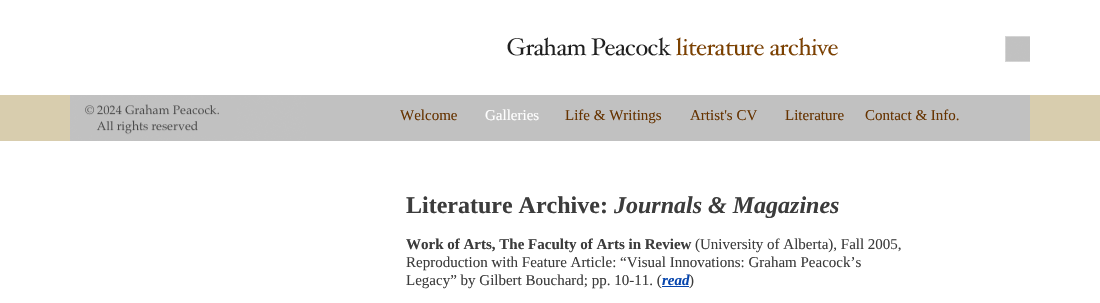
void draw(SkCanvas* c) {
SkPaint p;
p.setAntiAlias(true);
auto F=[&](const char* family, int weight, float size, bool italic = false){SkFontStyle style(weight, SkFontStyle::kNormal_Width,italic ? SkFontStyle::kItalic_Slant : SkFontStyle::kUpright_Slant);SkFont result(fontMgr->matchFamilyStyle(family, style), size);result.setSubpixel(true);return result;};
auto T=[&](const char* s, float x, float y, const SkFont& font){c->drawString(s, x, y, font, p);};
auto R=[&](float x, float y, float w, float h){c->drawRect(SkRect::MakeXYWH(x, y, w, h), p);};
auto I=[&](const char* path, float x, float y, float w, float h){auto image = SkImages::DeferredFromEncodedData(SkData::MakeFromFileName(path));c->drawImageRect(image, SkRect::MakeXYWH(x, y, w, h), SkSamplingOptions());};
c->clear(0xffffffff);
p.setColor(0xffd8cdae);
R(0,95,1100,46);
p.setColor(0xffffffff);
R(70,95,960,46);
p.setColor(0xffc1c1c1);
R(307,95,723,46);
auto f1 = F("Liberation Serif",400,15);
p.setColor(0xff663300);
T("Welcome",400,120,f1);
p.setColor(0xffffffff);
T("Galleries",485,120,f1);
p.setColor(0xff663300);
T("Life & Writings",565,120,f1);
T("Artist's CV",690,120,f1);
T("Literature",785,120,f1);
T("Contact & Info.",865,120,f1);
I("1.png",507,36,523,26);
I("2.png",70,95,237,46);
auto f2 = F("Liberation Serif",700,24);
p.setColor(0xff3c3c3c);
T("Literature Archive:",406,213,f2);
auto f3 = F("Liberation Serif",700,24,true);
T("Journals & Magazines",614,213,f3);
auto f4 = F("Liberation Serif",700,15);
T("Work of Arts, The Faculty of Arts in Review",406,249,f4);
T("(University of Alberta), Fall 2005,",695,249,f1);
T("Reproduction with Feature Article: “Visual Innovations: Graham Peacock’s",406,267,f1);
T("Legacy” by Gilbert Bouchard; pp. 10-11. (",406,285,f1);
auto f5 = F("Liberation Serif",700,15,true);
p.setColor(0xff0645ad);
T("read",662,285,f5);
R(662,286,27,1);
p.setColor(0xff3c3c3c);
T(")",689,285,f1);
}
